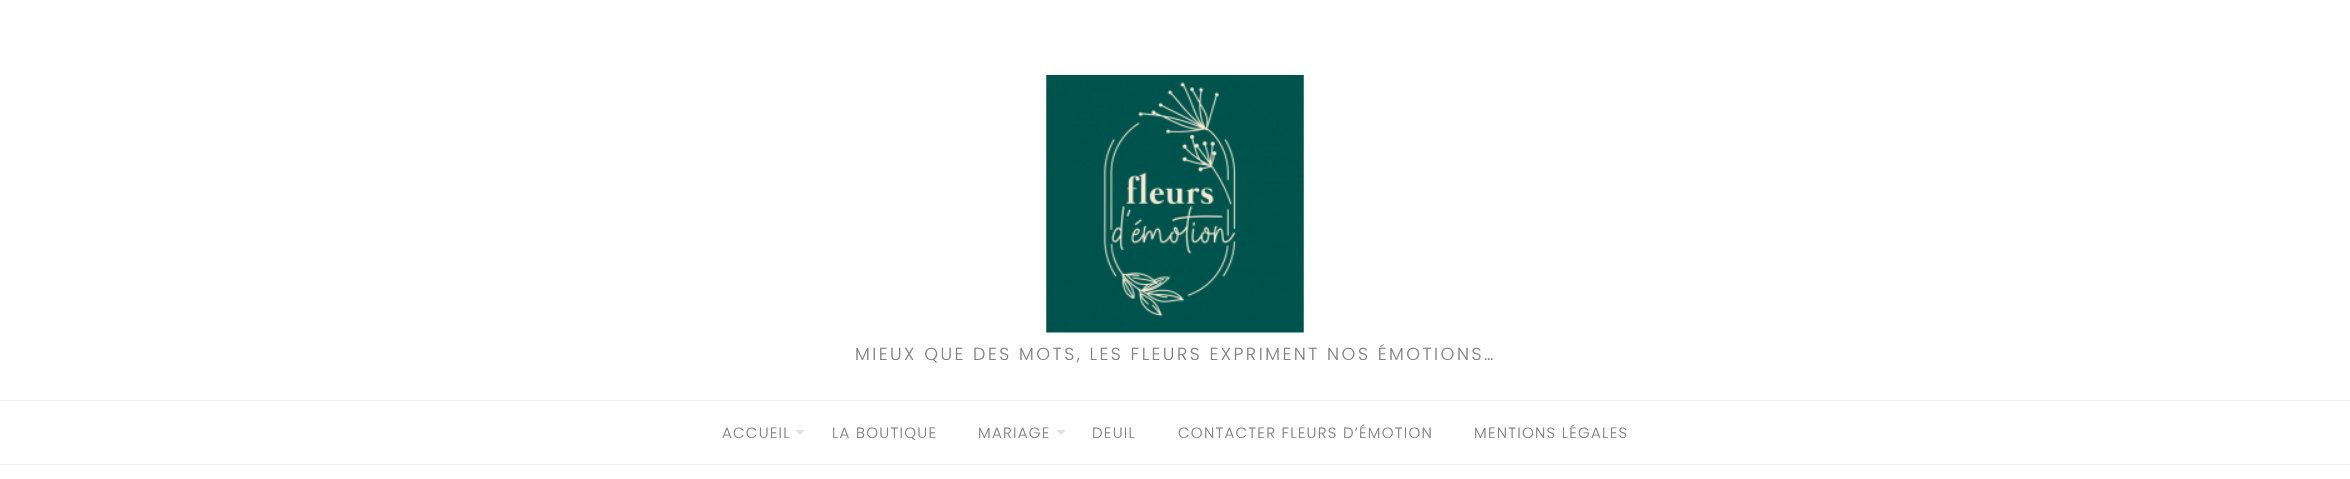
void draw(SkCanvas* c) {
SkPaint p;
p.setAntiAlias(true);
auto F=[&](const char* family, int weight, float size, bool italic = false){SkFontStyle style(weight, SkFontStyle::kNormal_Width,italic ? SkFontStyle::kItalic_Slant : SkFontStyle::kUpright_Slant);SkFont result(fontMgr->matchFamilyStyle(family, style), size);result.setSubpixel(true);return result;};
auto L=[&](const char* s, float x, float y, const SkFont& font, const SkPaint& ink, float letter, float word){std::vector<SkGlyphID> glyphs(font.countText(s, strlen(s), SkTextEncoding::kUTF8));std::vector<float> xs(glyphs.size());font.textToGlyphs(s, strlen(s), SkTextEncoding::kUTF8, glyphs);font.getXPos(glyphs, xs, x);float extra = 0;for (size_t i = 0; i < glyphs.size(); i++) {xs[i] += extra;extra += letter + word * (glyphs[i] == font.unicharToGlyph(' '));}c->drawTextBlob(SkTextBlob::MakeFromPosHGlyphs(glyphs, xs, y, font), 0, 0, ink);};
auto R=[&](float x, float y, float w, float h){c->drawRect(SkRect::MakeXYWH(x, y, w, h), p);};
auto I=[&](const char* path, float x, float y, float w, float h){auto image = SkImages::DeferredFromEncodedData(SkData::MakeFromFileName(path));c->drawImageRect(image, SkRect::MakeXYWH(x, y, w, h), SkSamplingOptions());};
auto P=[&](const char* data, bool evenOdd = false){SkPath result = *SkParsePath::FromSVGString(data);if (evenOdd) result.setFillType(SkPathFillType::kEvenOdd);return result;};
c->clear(0xffffffff);
I("1.png",1046,75,258,258);
auto f1 = F("Poppins",300,17.5);
p.setColor(0xff818181);
L("MIEUX QUE DES MOTS, LES FLEURS EXPRIMENT NOS ÉMOTIONS…",855,360,f1,p,2.5,0);
p.setColor(0xffeeeeee);
R(0,400,2350,1);
R(0,464,2350,1);
auto f2 = F("Poppins",300,15);
p.setColor(0xff818181);
L("ACCUEIL",722,438,f2,p,1.25,0);
p.setColor(0xffe1e1e1);
c->drawPath(P("M795 430h10l-5 5z"),p);
p.setColor(0xff818181);
L("LA BOUTIQUE",832,438,f2,p,1.25,0);
L("MARIAGE",978,438,f2,p,1.25,0);
p.setColor(0xffe1e1e1);
c->drawPath(P("M1056 430h10l-5 5z"),p);
p.setColor(0xff818181);
L("DEUIL",1092,438,f2,p,1.25,0);
L("CONTACTER FLEURS D’ÉMOTION",1178,438,f2,p,1.25,0);
L("MENTIONS LÉGALES",1474,438,f2,p,1.25,0);
}
